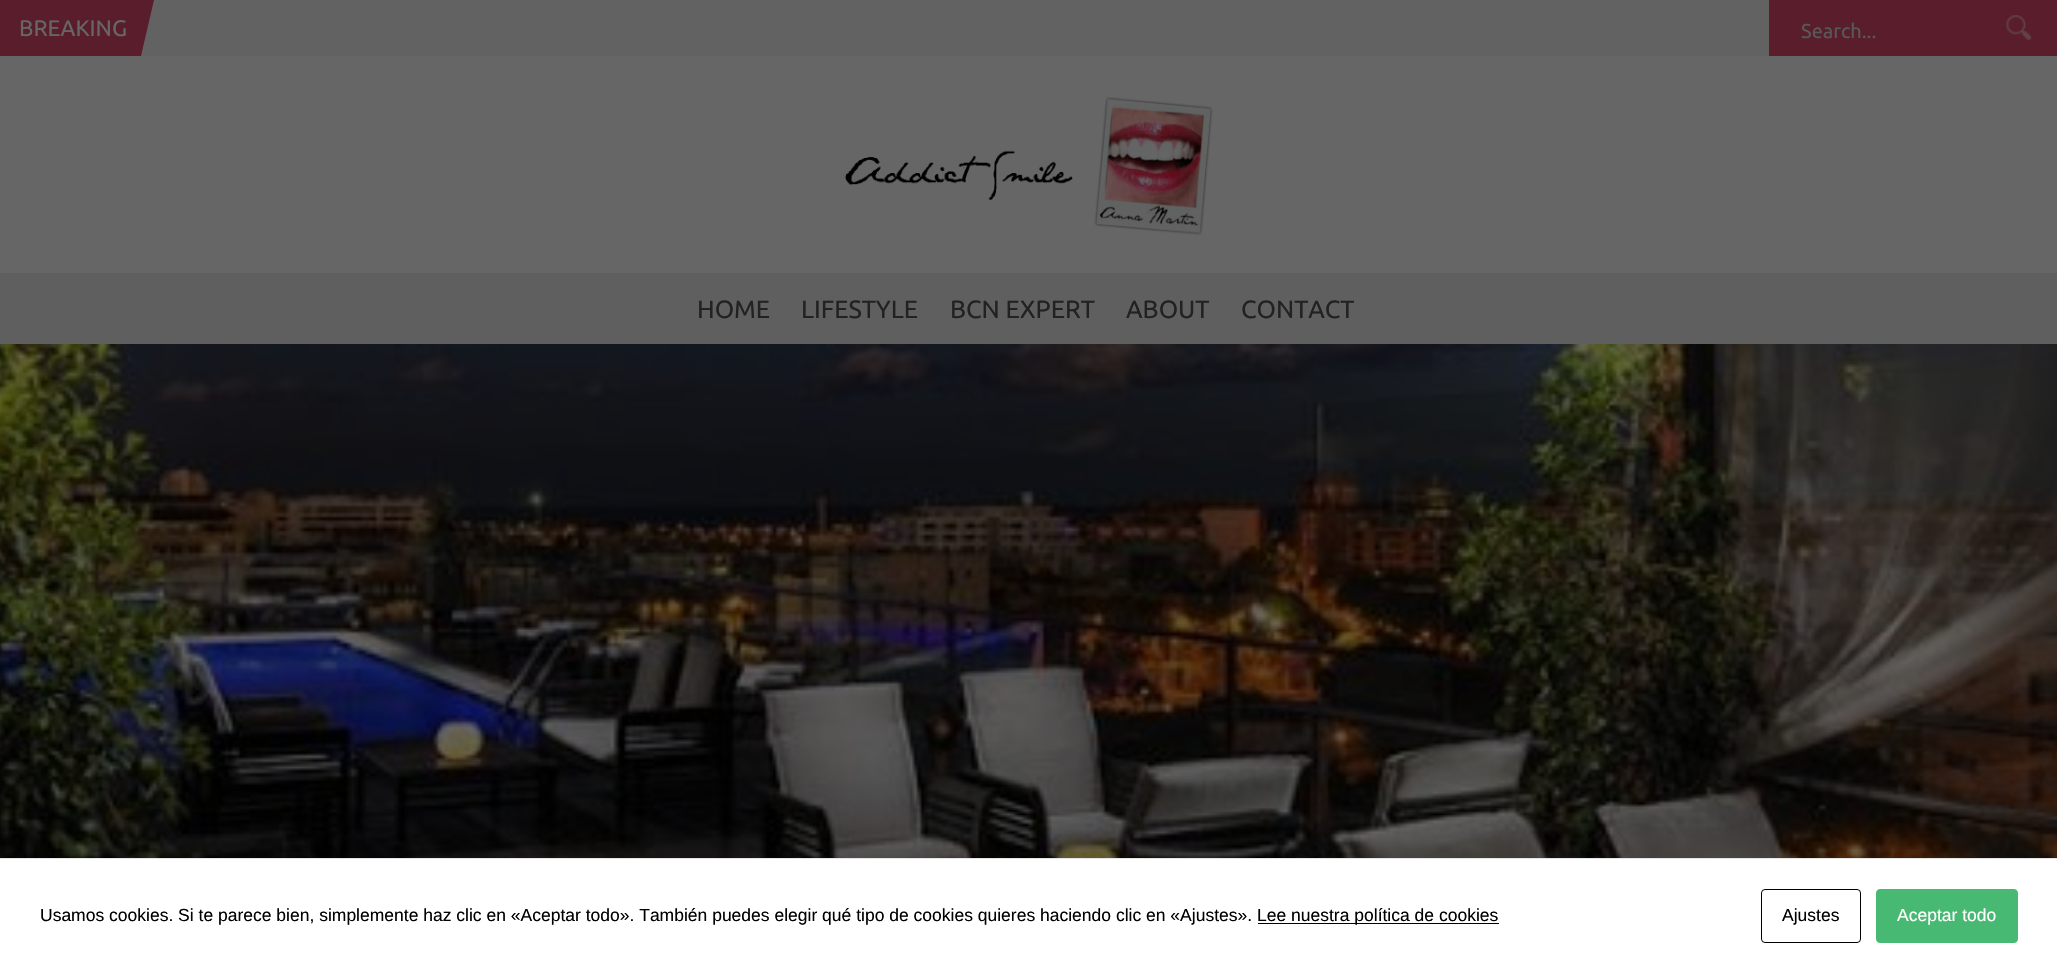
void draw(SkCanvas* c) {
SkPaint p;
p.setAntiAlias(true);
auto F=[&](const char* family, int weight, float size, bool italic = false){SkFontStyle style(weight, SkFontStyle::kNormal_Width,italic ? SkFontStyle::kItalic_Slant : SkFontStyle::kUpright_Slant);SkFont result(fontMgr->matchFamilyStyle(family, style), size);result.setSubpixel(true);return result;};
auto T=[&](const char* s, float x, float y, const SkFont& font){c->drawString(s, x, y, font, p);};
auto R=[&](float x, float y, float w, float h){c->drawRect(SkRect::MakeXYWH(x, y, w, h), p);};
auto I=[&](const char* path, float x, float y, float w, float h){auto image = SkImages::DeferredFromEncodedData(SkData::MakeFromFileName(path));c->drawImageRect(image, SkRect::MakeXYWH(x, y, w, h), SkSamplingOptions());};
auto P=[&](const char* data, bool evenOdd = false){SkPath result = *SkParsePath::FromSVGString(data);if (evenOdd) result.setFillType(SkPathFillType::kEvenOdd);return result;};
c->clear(0xff666666);
p.setColor(0xff626262);
R(141,0,1628,56);
p.setColor(0xff5a1d2b);
R(0,0,141,56);
auto f1 = F("Ubuntu",400,22.5);
p.setColor(0xff666666);
T("BREAKING",19,36,f1);
p.setColor(0xff5a1d2b);
c->drawPath(P("M141 56v-56h13z"),p);
R(1769,0,288,56);
auto f2 = F("Ubuntu",400,20);
p.setColor(0xff585858);
T("Search...",1801,38,f2);
I("1.png",2006,15,26,25);
I("2.png",845,97,368,138);
p.setColor(0xff5f5f5f);
R(0,273,2057,71);
auto f3 = F("Ubuntu",400,25);
p.setColor(0xff222222);
T("HOME",697,318,f3);
T("LIFESTYLE",801,318,f3);
T("BCN EXPERT",950,318,f3);
T("ABOUT",1126,318,f3);
T("CONTACT",1241,318,f3);
I("3.png",0,344,2057,514);
p.setColor(0xffffffff);
R(0,859,2057,113);
p.setColor(0xffe6e6e6);
R(0,858,2057,1);
auto f4 = F("Liberation Sans",400,17.5);
p.setColor(0xff000000);
T("Usamos cookies. Si te parece bien, simplemente haz clic en «Aceptar todo». También puedes elegir qué tipo de cookies quieres haciendo clic en «Ajustes».",40,921,f4);
R(1258,923,241,1);
T("Lee nuestra política de cookies",1257,921,f4);
p.setStroke(true);
p.setStrokeWidth(1);
c->drawRoundRect(SkRect::MakeXYWH(1761.5,889.5,99,53),3.5,3.5,p);
p.setStroke(false);
T("Ajustes",1782,921,f4);
p.setColor(0xff47b973);
c->drawRoundRect(SkRect::MakeXYWH(1876.5,889.5,141,53),3.5,3.5,p);
p.setStroke(true);
c->drawRoundRect(SkRect::MakeXYWH(1876.5,889.5,141,53),3.5,3.5,p);
p.setStroke(false);
p.setColor(0xffffffff);
T("Aceptar todo",1897,921,f4);
}
